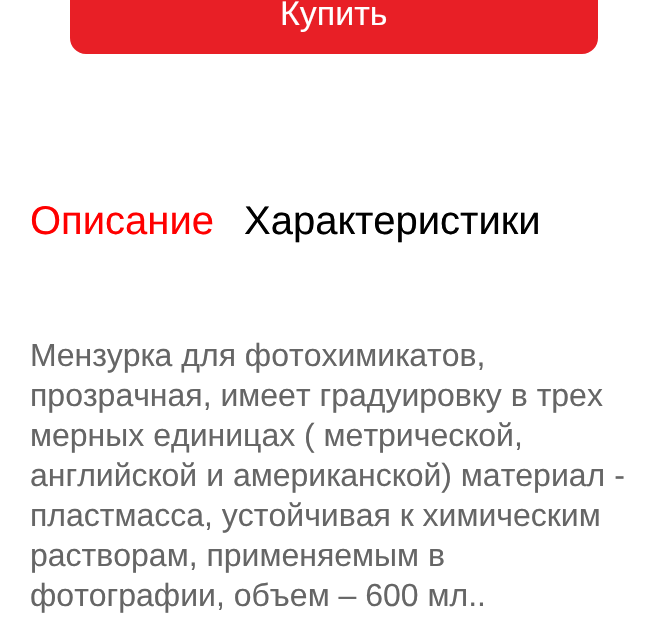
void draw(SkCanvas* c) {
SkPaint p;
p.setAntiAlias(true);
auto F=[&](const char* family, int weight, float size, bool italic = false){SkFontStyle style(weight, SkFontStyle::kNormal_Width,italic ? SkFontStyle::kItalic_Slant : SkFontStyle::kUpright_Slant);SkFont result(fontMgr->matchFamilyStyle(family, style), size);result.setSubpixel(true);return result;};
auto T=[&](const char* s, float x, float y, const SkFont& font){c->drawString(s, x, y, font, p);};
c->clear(0xffffffff);
p.setColor(0xffe81f26);
c->drawRoundRect(SkRect::MakeXYWH(71,-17,526,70),15,15,p);
p.setStroke(true);
p.setStrokeWidth(2);
c->drawRoundRect(SkRect::MakeXYWH(71,-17,526,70),15,15,p);
auto f1 = F("Liberation Sans",400,34);
p.setStroke(false);
p.setColor(0xffffffff);
T("Купить",280,25,f1);
auto f2 = F("Liberation Sans",400,40);
p.setColor(0xffff0000);
T("Описание",30,234,f2);
p.setColor(0xff000000);
T("Характеристики",244,234,f2);
auto f3 = F("Liberation Sans",400,32);
p.setColor(0xff666666);
T("Мензурка для фотохимикатов,",30,366,f3);
T("прозрачная, имеет градуировку в трех",30,406,f3);
T("мерных единицах ( метрической,",30,446,f3);
T("английской и американской) материал -",30,486,f3);
T("пластмасса, устойчивая к химическим",30,526,f3);
T("растворам, применяемым в",30,566,f3);
T("фотографии, объем – 600 мл..",30,606,f3);
}
